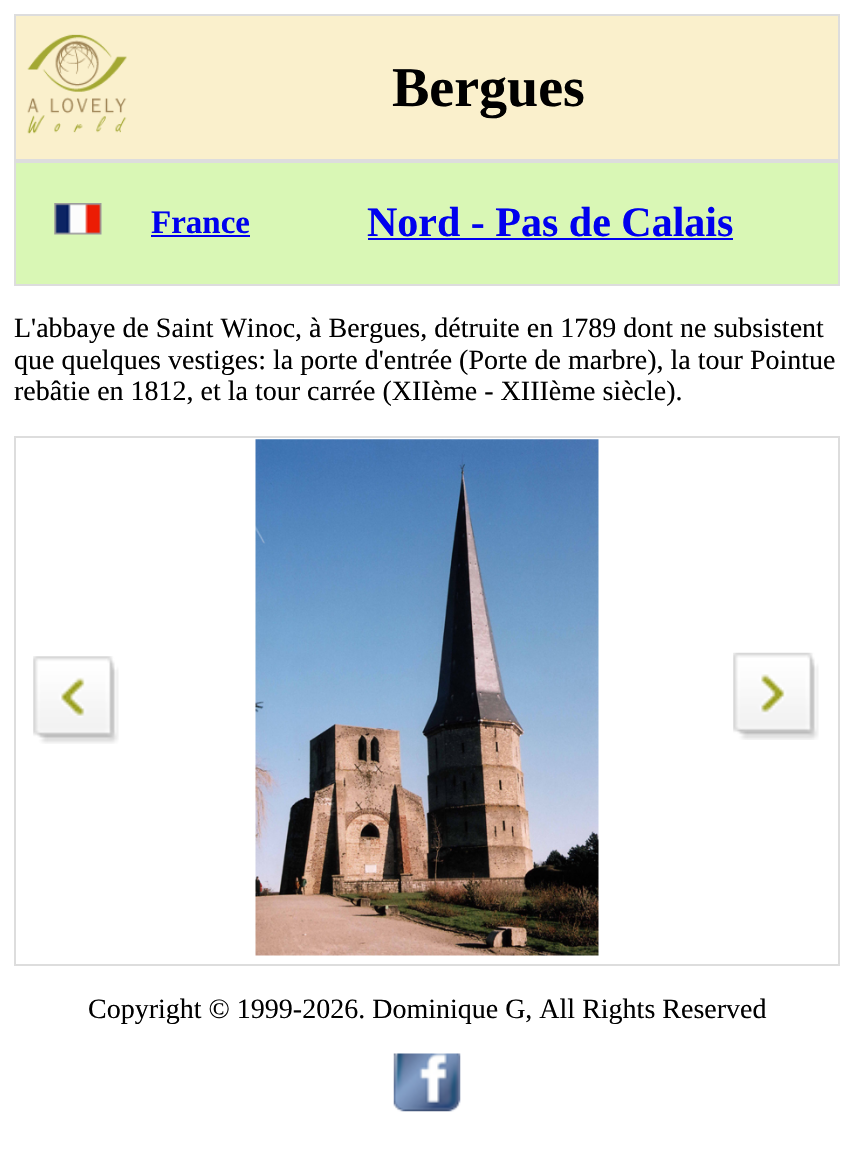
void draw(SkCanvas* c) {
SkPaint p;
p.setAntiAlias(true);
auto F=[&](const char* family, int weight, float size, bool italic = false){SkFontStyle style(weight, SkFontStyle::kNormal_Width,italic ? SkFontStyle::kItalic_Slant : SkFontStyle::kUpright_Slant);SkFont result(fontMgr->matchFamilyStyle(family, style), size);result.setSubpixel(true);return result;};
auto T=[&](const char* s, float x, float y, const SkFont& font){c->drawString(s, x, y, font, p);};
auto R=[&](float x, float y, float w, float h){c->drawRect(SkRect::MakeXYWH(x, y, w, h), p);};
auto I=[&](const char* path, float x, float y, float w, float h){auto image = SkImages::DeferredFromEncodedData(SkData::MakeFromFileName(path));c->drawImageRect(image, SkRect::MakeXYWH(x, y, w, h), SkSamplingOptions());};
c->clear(0xffffffff);
p.setColor(0xfffaf0cc);
R(16,16,822,143);
p.setColor(0xffdddddd);
R(14,14,826,2);
R(838,14,2,147);
R(14,159,826,4);
R(14,14,2,147);
I("1.png",27,34,100,100);
auto f1 = F("Liberation Serif",700,56);
p.setColor(0xff000000);
T("Bergues",392,106,f1);
p.setColor(0xffd9f7b5);
R(16,163,822,121);
p.setColor(0xffdddddd);
R(838,161,2,124);
R(14,284,826,2);
R(14,161,2,124);
I("2.png",54,203,48,32);
auto f2 = F("Liberation Serif",700,33);
p.setColor(0xff0000ee);
T("France",151,233,f2);
R(151,235,99,2);
auto f3 = F("Liberation Serif",700,42);
T("Nord - Pas de Calais",367,236,f3);
R(368,238,365,2);
auto f4 = F("Liberation Serif",400,28);
p.setColor(0xff000000);
T("L'abbaye de Saint Winoc, à Bergues, détruite en 1789 dont ne subsistent",14,337,f4);
T("que quelques vestiges: la porte d'entrée (Porte de marbre), la tour Pointue",14,369,f4);
T("rebâtie en 1812, et la tour carrée (XIIème - XIIIème siècle).",14,400,f4);
p.setColor(0xffdddddd);
R(14,436,826,2);
R(838,436,2,530);
R(14,964,826,2);
R(14,436,2,530);
I("3.png",33,656,86,88);
I("4.png",255,439,344,517);
I("5.png",733,652,86,88);
p.setColor(0xff000000);
T("Copyright © 1999-2026. Dominique G, All Rights Reserved",88,1018,f4);
I("6.png",393,1053,68,59);
}
